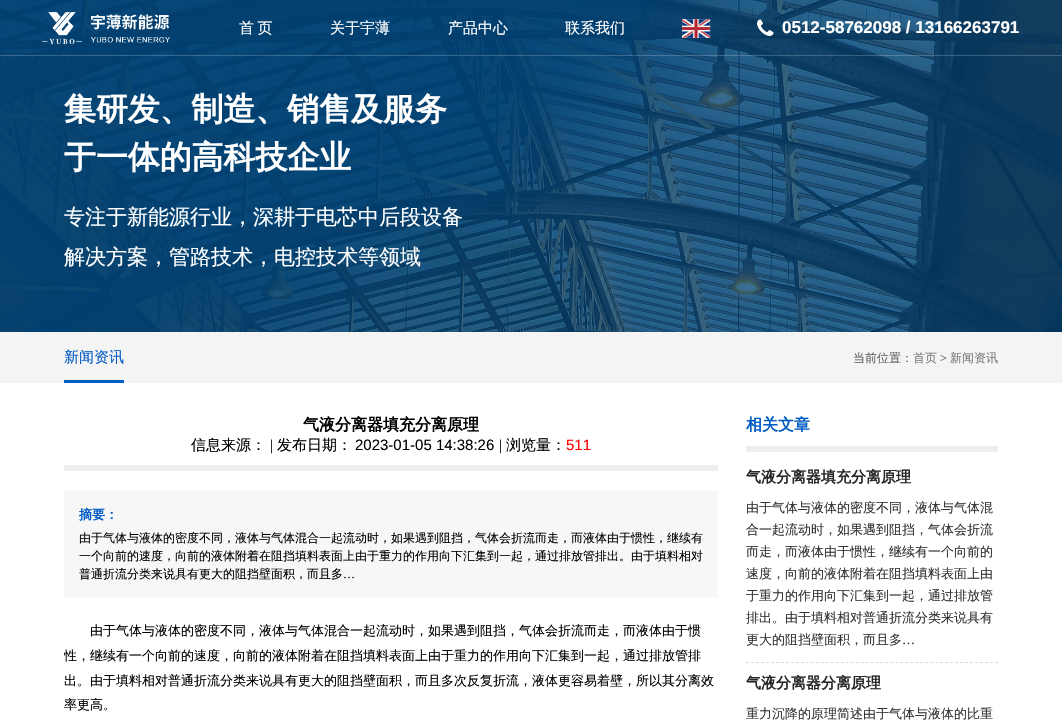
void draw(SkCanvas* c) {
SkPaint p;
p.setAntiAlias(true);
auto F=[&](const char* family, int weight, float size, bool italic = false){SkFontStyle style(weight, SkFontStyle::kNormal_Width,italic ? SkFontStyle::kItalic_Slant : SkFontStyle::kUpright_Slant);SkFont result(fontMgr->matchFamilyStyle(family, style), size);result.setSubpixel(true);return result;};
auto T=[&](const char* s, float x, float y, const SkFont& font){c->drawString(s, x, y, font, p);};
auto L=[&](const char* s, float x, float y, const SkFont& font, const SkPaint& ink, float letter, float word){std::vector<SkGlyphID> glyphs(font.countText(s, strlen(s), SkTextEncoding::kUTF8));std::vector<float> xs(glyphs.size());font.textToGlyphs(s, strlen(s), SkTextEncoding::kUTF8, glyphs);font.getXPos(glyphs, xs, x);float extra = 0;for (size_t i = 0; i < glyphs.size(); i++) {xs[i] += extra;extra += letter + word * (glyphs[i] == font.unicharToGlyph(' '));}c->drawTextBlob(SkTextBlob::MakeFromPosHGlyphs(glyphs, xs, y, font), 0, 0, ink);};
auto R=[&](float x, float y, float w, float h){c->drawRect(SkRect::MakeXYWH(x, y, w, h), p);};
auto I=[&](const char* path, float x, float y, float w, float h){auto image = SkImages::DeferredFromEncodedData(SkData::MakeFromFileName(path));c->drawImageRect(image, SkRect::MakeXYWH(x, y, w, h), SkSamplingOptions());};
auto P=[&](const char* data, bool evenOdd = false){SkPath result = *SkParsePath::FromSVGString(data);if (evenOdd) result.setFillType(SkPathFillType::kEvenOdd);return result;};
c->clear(0xffffffff);
I("4.png",0,0,1062,332);
p.setColor(0x33ffffff);
R(0,55,1062,1);
I("1.png",42,12,128,33);
auto f1 = F("WenQuanYi Zen Hei",500,15);
p.setColor(0xffffffff);
L("首 页",239,33,f1,p,0,-1);
T("关于宇薄",330,33,f1);
T("产品中心",448,33,f1);
T("联系我们",565,33,f1);
I("2.png",682,19,29,19);
I("3.png",757,19,17,17);
auto f2 = F("Liberation Sans",700,17);
T("0512-58762098 / 13166263791",782,33,f2);
auto f3 = F("WenQuanYi Zen Hei",700,31.9);
T("集研发、制造、销售及服务",64,120,f3);
T("于一体的高科技企业",64,168,f3);
auto f4 = F("WenQuanYi Zen Hei",500,21);
T("专注于新能源行业，深耕于电芯中后段设备",64,224,f4);
T("解决方案，管路技术，电控技术等领域",64,264,f4);
p.setColor(0xfff4f4f4);
R(0,332,1062,51);
p.setColor(0xff005dc1);
R(64,380,60,3);
p.setColor(0xff005bc3);
T("新闻资讯",64,362,f1);
auto f5 = F("WenQuanYi Zen Hei",500,12);
p.setColor(0xff626262);
T("当前位置：",853,362,f5);
p.setColor(0xff7a7a7a);
T("首页",913,362,f5);
auto f6 = F("Liberation Serif",400,12);
p.setColor(0xff626262);
T(">",940,362,f6);
p.setColor(0xff7a7a7a);
T("新闻资讯",950,362,f5);
p.setColor(0xffeeeeee);
R(64,465,654,6);
auto f7 = F("WenQuanYi Zen Hei",700,16);
p.setColor(0xff000000);
T("气液分离器填充分离原理",303,430,f7);
T("信息来源：",191,450,f1);
auto f8 = F("Liberation Serif",400,15);
T("|",270,450,f8);
T("发布日期：",277,450,f1);
auto f9 = F("Liberation Sans",400,15);
T("2023-01-05 14:38:26",355,450,f9);
T("|",499,450,f8);
T("浏览量：",506,450,f1);
p.setColor(0xffff0000);
T("511",566,450,f9);
p.setColor(0xfff7f7f7);
R(64,491,654,107);
auto f10 = F("WenQuanYi Zen Hei",700,13);
p.setColor(0xff005bc3);
T("摘要：",79,519,f10);
p.setColor(0xff000000);
T("由于气体与液体的密度不同，液体与气体混合一起流动时，如果遇到阻挡，气体会折流而走，而液体由于惯性，继续有",79,542,f5);
T("一个向前的速度，向前的液体附着在阻挡填料表面上由于重力的作用向下汇集到一起，通过排放管排出。由于填料相对",79,560,f5);
T("普通折流分类来说具有更大的阻挡壁面积，而且多",79,578,f5);
T("…",343,578,f6);
auto f11 = F("WenQuanYi Zen Hei",500,13);
T("由于气体与液体的密度不同，液体与气体混合一起流动时，如果遇到阻挡，气体会折流而走，而液体由于惯",90,635,f11);
c->save();
c->clipRect(SkRect::MakeXYWH(64,415,654,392));
T("性，继续有一个向前的速度，向前的液体附着在阻挡填料表面上由于重力的作用向下汇集到一起，通过排放管排",64,660,f11);
c->restore();
T("出。由于填料相对普通折流分类来说具有更大的阻挡壁面积，而且多次反复折流，液体更容易着壁，所以其分离效",64,685,f11);
T("率更高。",64,709,f11);
p.setColor(0xffeeeeee);
R(746,446,252,6);
p.setColor(0xff005bc3);
T("相关文章",746,430,f7);
p.setStroke(true);
p.setStrokeWidth(1);
p.setColor(0xffdadada);
p.setPathEffect(SkDashPathEffect::Make({{3,1.98f}}, 0));
c->drawPath(P("M746 662.5h252"),p);
p.setPathEffect(nullptr);
auto f12 = F("WenQuanYi Zen Hei",700,15);
p.setStroke(false);
p.setColor(0xff282828);
T("气液分离器填充分离原理",746,482,f12);
p.setColor(0xff333333);
T("由于气体与液体的密度不同，液体与气体混",746,512,f11);
T("合一起流动时，如果遇到阻挡，气体会折流",746,534,f11);
T("而走，而液体由于惯性，继续有一个向前的",746,556,f11);
T("速度，向前的液体附着在阻挡填料表面上由",746,578,f11);
T("于重力的作用向下汇集到一起，通过排放管",746,600,f11);
T("排出。由于填料相对普通折流分类来说具有",746,622,f11);
T("更大的阻挡壁面积，而且多",746,644,f11);
auto f13 = F("Liberation Serif",400,13);
T("…",902,644,f13);
p.setColor(0xff282828);
T("气液分离器分离原理",746,688,f12);
p.setColor(0xff333333);
T("重力沉降的原理简述由于气体与液体的比重",746,718,f11);
}
